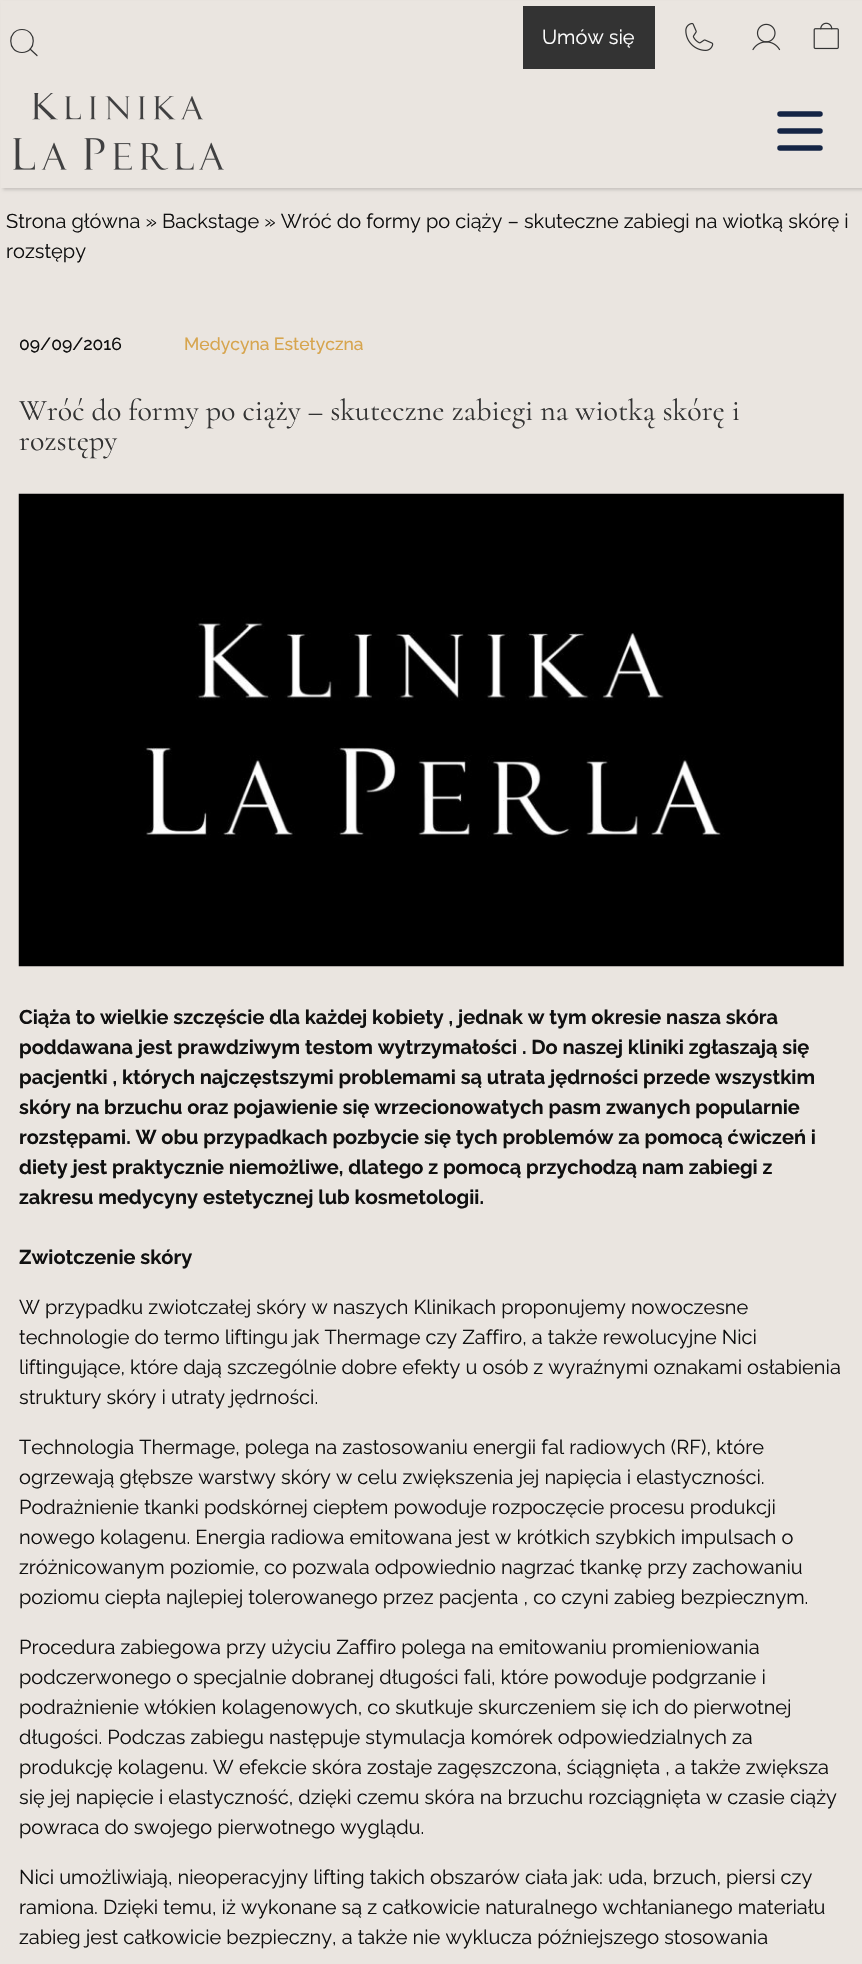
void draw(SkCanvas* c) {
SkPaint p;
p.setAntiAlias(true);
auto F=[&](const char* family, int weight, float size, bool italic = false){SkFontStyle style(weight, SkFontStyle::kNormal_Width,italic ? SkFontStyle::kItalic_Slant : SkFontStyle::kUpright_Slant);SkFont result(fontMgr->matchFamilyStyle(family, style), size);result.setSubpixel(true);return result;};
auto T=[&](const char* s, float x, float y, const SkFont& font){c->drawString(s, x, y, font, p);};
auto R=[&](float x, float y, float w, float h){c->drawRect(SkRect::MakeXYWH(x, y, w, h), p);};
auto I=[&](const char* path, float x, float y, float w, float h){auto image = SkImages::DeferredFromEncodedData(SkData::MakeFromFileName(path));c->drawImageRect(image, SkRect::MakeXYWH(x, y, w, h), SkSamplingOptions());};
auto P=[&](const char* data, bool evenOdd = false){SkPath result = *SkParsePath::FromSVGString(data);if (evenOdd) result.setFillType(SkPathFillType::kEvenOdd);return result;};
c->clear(0xffeae5e0);
p.setColor(0x26000000);
p.setMaskFilter(SkMaskFilter::MakeBlur(kNormal_SkBlurStyle, 1.5));
c->drawRect(SkRect::MakeXYWH(3,3,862,187),p);
p.setMaskFilter(nullptr);
p.setColor(0xffeae5e0);
R(1,1,861,187);
p.setStroke(true);
p.setStrokeWidth(1.2);
p.setStrokeCap(SkPaint::kRound_Cap);
p.setStrokeJoin(SkPaint::kRound_Join);
p.setColor(0xff333333);
c->drawPath(P("M22 52.5c15 0 15-23 0-23c-15 0-15 23 0 23zm8-3.5l7 6.5"),p);
p.setStroke(false);
R(523,6,132,63);
auto f1 = F("Raleway",400,20);
p.setColor(0xffffffff);
T("Umów się",542,44,f1);
I("1.png",685,22,29,29);
I("2.png",752,23,29,28);
I("3.png",813,22,26,28);
I("4.png",13,93,211,77);
p.setStroke(true);
p.setStrokeWidth(5.5);
p.setStrokeJoin(SkPaint::kMiter_Join);
p.setColor(0xff142444);
c->drawPath(P("M780 114h40m-40 17h40m0 17h-40"),p);
p.setStroke(false);
p.setColor(0xff101010);
T("Strona główna » Backstage » Wróć do formy po ciąży – skuteczne zabiegi na wiotką skórę i",6,228,f1);
T("rozstępy",6,258,f1);
auto f2 = F("Raleway",500,17.5);
T("09/09/2016",19,350,f2);
p.setColor(0xffd7a54e);
T("Medycyna Estetyczna",184,350,f2);
auto f3 = F("Cormorant",400,30);
p.setColor(0xff333333);
T("Wróć do formy po ciąży – skuteczne zabiegi na wiotką skórę i",19,420,f3);
T("rozstępy",19,450,f3);
I("5.png",18,493,826,474);
auto f4 = F("Raleway",700,20);
p.setColor(0xff101010);
T("Ciąża to wielkie szczęście dla każdej kobiety , jednak w tym okresie nasza skóra",19,1024,f4);
T("poddawana jest prawdziwym testom wytrzymałości . Do naszej kliniki zgłaszają się",19,1054,f4);
T("pacjentki , których najczęstszymi problemami są utrata jędrności przede wszystkim",19,1084,f4);
T("skóry na brzuchu oraz pojawienie się wrzecionowatych pasm zwanych popularnie",19,1114,f4);
T("rozstępami. W obu przypadkach pozbycie się tych problemów za pomocą ćwiczeń i",19,1144,f4);
T("diety jest praktycznie niemożliwe, dlatego z pomocą przychodzą nam zabiegi z",19,1174,f4);
T("zakresu medycyny estetycznej lub kosmetologii.",19,1204,f4);
T("Zwiotczenie skóry",19,1264,f4);
T("W przypadku zwiotczałej skóry w naszych Klinikach proponujemy nowoczesne",19,1314,f1);
T("technologie do termo liftingu jak Thermage czy Zaffiro, a także rewolucyjne Nici",19,1344,f1);
T("liftingujące, które dają szczególnie dobre efekty u osób z wyraźnymi oznakami osłabienia",19,1374,f1);
T("struktury skóry i utraty jędrności.",19,1404,f1);
T("Technologia Thermage, polega na zastosowaniu energii fal radiowych (RF), które",19,1454,f1);
T("ogrzewają głębsze warstwy skóry w celu zwiększenia jej napięcia i elastyczności.",19,1484,f1);
T("Podrażnienie tkanki podskórnej ciepłem powoduje rozpoczęcie procesu produkcji",19,1514,f1);
T("nowego kolagenu. Energia radiowa emitowana jest w krótkich szybkich impulsach o",19,1544,f1);
T("zróżnicowanym poziomie, co pozwala odpowiednio nagrzać tkankę przy zachowaniu",19,1574,f1);
T("poziomu ciepła najlepiej tolerowanego przez pacjenta , co czyni zabieg bezpiecznym.",19,1604,f1);
T("Procedura zabiegowa przy użyciu Zaffiro polega na emitowaniu promieniowania",19,1654,f1);
T("podczerwonego o specjalnie dobranej długości fali, które powoduje podgrzanie i",19,1684,f1);
T("podrażnienie włókien kolagenowych, co skutkuje skurczeniem się ich do pierwotnej",19,1714,f1);
T("długości. Podczas zabiegu następuje stymulacja komórek odpowiedzialnych za",19,1744,f1);
T("produkcję kolagenu. W efekcie skóra zostaje zagęszczona, ściągnięta , a także zwiększa",19,1774,f1);
T("się jej napięcie i elastyczność, dzięki czemu skóra na brzuchu rozciągnięta w czasie ciąży",19,1804,f1);
T("powraca do swojego pierwotnego wyglądu.",19,1834,f1);
T("Nici umożliwiają, nieoperacyjny lifting takich obszarów ciała jak: uda, brzuch, piersi czy",19,1884,f1);
T("ramiona. Dzięki temu, iż wykonane są z całkowicie naturalnego wchłanianego materiału",19,1914,f1);
T("zabieg jest całkowicie bezpieczny, a także nie wyklucza późniejszego stosowania",19,1944,f1);
}
